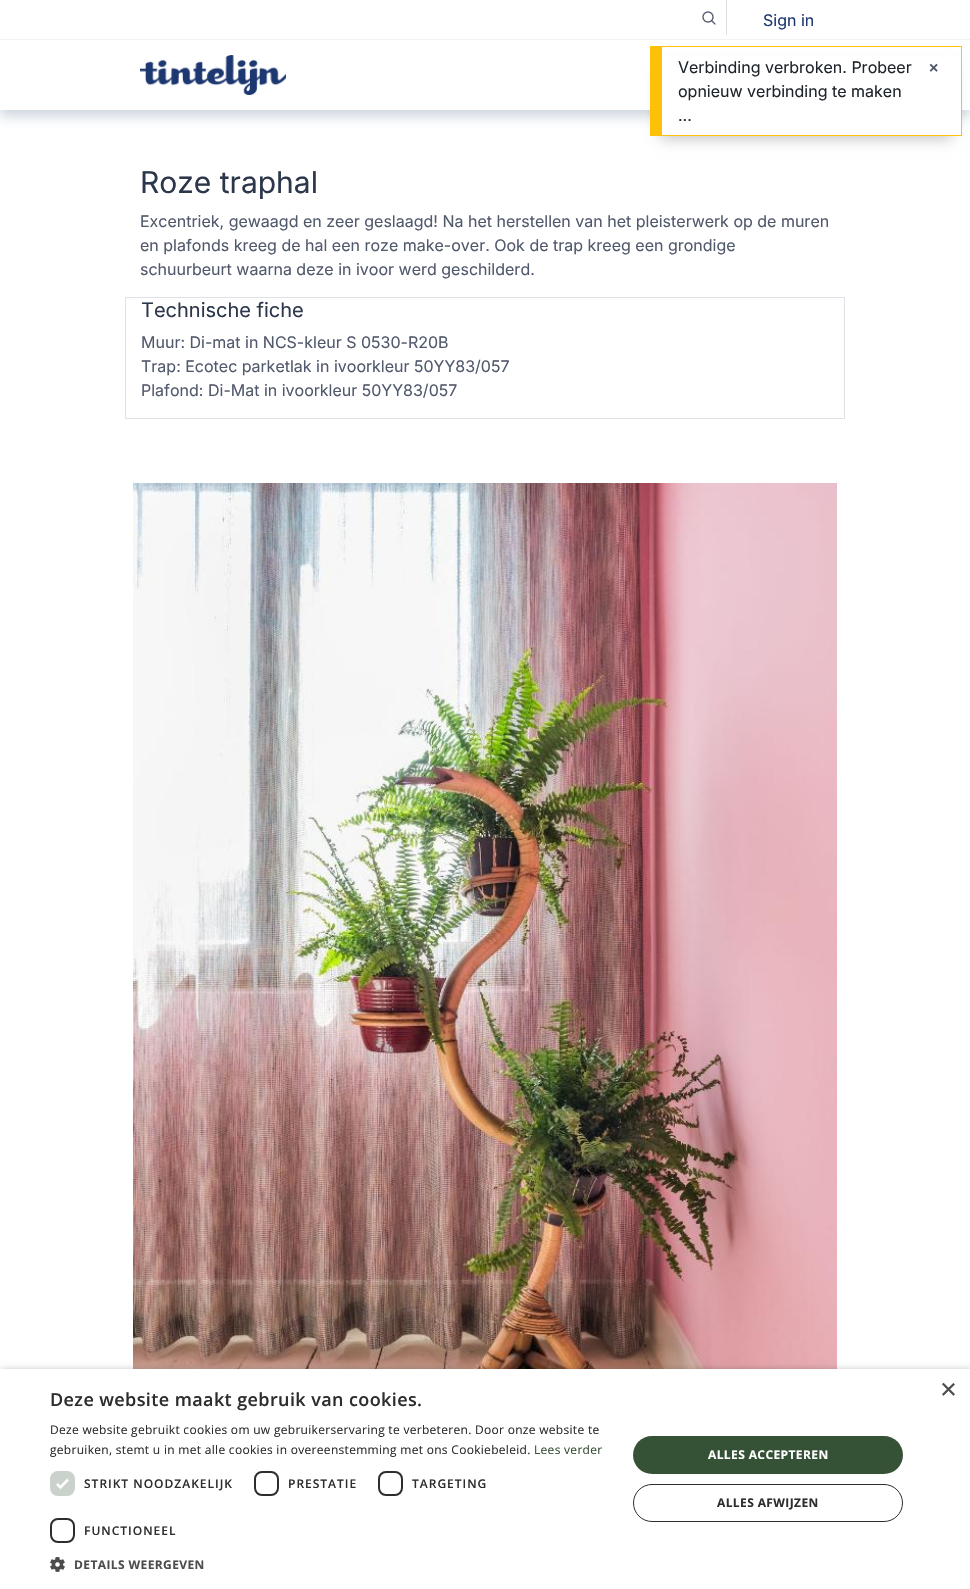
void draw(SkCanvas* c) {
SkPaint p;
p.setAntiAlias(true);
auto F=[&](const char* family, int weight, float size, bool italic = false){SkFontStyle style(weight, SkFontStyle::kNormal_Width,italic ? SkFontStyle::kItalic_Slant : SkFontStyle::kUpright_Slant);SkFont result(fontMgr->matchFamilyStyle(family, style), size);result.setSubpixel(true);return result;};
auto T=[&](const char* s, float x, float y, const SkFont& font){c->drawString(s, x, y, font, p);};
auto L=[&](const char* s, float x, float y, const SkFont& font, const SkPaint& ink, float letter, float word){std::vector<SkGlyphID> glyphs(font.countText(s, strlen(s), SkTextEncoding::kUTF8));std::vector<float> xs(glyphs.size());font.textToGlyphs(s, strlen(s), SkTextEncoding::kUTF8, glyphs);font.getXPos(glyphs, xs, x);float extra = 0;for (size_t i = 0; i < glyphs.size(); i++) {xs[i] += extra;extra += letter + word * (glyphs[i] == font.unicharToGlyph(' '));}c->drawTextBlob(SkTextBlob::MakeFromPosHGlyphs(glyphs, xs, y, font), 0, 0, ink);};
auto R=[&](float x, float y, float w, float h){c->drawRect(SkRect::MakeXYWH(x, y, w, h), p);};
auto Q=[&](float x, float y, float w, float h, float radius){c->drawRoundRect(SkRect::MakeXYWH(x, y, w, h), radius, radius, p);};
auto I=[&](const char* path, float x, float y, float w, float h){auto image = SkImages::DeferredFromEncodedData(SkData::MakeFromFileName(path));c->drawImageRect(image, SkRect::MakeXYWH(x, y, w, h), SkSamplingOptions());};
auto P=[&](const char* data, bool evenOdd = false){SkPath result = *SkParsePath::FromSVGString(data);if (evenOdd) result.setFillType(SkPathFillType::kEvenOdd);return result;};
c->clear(0xffffffff);
c->save();
c->clipRect(SkRect::MakeXYWH(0,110,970,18));
p.setColor(0xffcbd4dd);
p.setMaskFilter(SkMaskFilter::MakeBlur(kNormal_SkBlurStyle, 6));
c->drawRect(SkRect::MakeXYWH(0,6,970,110),p);
p.setMaskFilter(nullptr);
c->restore();
I("1.png",702,11,14,14);
p.setColor(0xffdcdee2);
R(726,0,1,35);
auto f1 = F("Inter",400,16);
p.setColor(0xff1c3771);
T("Sign in",763,26,f1);
p.setColor(0xfff1f2f3);
R(0,39,970,1);
I("2.png",140,55,146,40);
auto f2 = F("Inter",400,30);
p.setColor(0xff2d374b);
T("Roze traphal",140,193,f2);
p.setColor(0xff51596c);
T("Excentriek, gewaagd en zeer geslaagd! Na het herstellen van het pleisterwerk op de muren",140,227,f1);
T("en plafonds kreeg de hal een roze make-over. Ook de trap kreeg een grondige",140,251,f1);
T("schuurbeurt waarna deze in ivoor werd geschilderd.",140,275,f1);
p.setStroke(true);
p.setStrokeWidth(1);
p.setColor(0xffdee2e6);
c->drawRect(SkRect::MakeXYWH(125.5,297.5,719,121),p);
auto f3 = F("Inter",400,20);
p.setStroke(false);
p.setColor(0xff2d374b);
T("Technische fiche",141,317,f3);
p.setColor(0xff51596c);
T("Muur: Di-mat in NCS-kleur S 0530-R20B",141,348,f1);
T("Trap: Ecotec parketlak in ivoorkleur 50YY83/057",141,372,f1);
T("Plafond: Di-Mat in ivoorkleur 50YY83/057",141,396,f1);
I("3.png",133,483,704,886);
p.setColor(0x40000000);
p.setMaskFilter(SkMaskFilter::MakeBlur(kNormal_SkBlurStyle, 7));
c->drawRect(SkRect::MakeXYWH(660,68,292,70),p);
p.setMaskFilter(nullptr);
p.setColor(0xffffffff);
R(662,56,299,79);
p.setColor(0xffffc107);
R(662,46,300,1);
R(961,46,1,90);
R(662,135,300,1);
R(650,46,12,90);
p.setColor(0xff1e252c);
T("Verbinding verbroken. Probeer",678,73,f1);
T("opnieuw verbinding te maken",678,97,f1);
T("...",678,121,f1);
auto f4 = F("Liberation Sans",700,16);
p.setColor(0xff51596c);
T("×",929,73,f4);
p.setColor(0x59000000);
p.setMaskFilter(SkMaskFilter::MakeBlur(kNormal_SkBlurStyle, 4));
c->drawRect(SkRect::MakeXYWH(1,1371,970,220),p);
p.setMaskFilter(nullptr);
p.setColor(0xffffffff);
R(0,1369,970,220);
auto f5 = F("Liberation Sans",400,29);
p.setColor(0xff4d4d4d);
T("×",940,1399,f5);
auto f6 = F("Open Sans",600,18);
p.setColor(0xff2d2d2d);
L("Deze website maakt gebruik van cookies.",50,1406,f6,p,.4,0);
auto f7 = F("Open Sans",400,12);
L("Deze website gebruikt cookies om uw gebruikerservaring te verbeteren. Door onze website te",50,1434,f7,p,.3,0);
L("gebruiken, stemt u in met alle cookies in overeenstemming met ons Cookiebeleid.",50,1454,f7,p,.3,0);
p.setColor(0xff365236);
L("Lees verder",534,1454,f7,p,.3,0);
p.setColor(0xffcbd2cb);
Q(50,1471,25,25,8);
p.setStroke(true);
p.setStrokeWidth(2.6);
p.setColor(0xffffffff);
c->drawPath(P("M57 1484l3.5 3.5l7.5-8"),p);
auto f8 = F("Open Sans",600,12);
p.setStroke(false);
p.setColor(0xff2d2d2d);
L("STRIKT NOODZAKELIJK",84,1488,f8,p,1,0);
p.setStroke(true);
p.setStrokeWidth(2);
c->drawRoundRect(SkRect::MakeXYWH(255,1472,23,23),7,7,p);
p.setStroke(false);
L("PRESTATIE",288,1488,f8,p,1,0);
p.setStroke(true);
c->drawRoundRect(SkRect::MakeXYWH(379,1472,23,23),7,7,p);
p.setStroke(false);
L("TARGETING",412,1488,f8,p,1,0);
p.setStroke(true);
c->drawRoundRect(SkRect::MakeXYWH(51,1519,23,23),7,7,p);
p.setStroke(false);
L("FUNCTIONEEL",84,1535,f8,p,1,0);
I("4.png",50,1557,15,15);
auto f9 = F("Open Sans",700,12);
p.setColor(0xff4d4d4d);
L("DETAILS WEERGEVEN",74,1569,f9,p,.4,0);
p.setColor(0xff365236);
Q(633,1436,270,38,19);
p.setColor(0xffffffff);
L("ALLES ACCEPTEREN",708,1459,f9,p,.4,0);
p.setStroke(true);
p.setStrokeWidth(1);
p.setColor(0xff2d2d2d);
c->drawRoundRect(SkRect::MakeXYWH(633.5,1484.5,269,37),18.5,18.5,p);
p.setStroke(false);
L("ALLES AFWIJZEN",717,1507,f9,p,.4,0);
}
